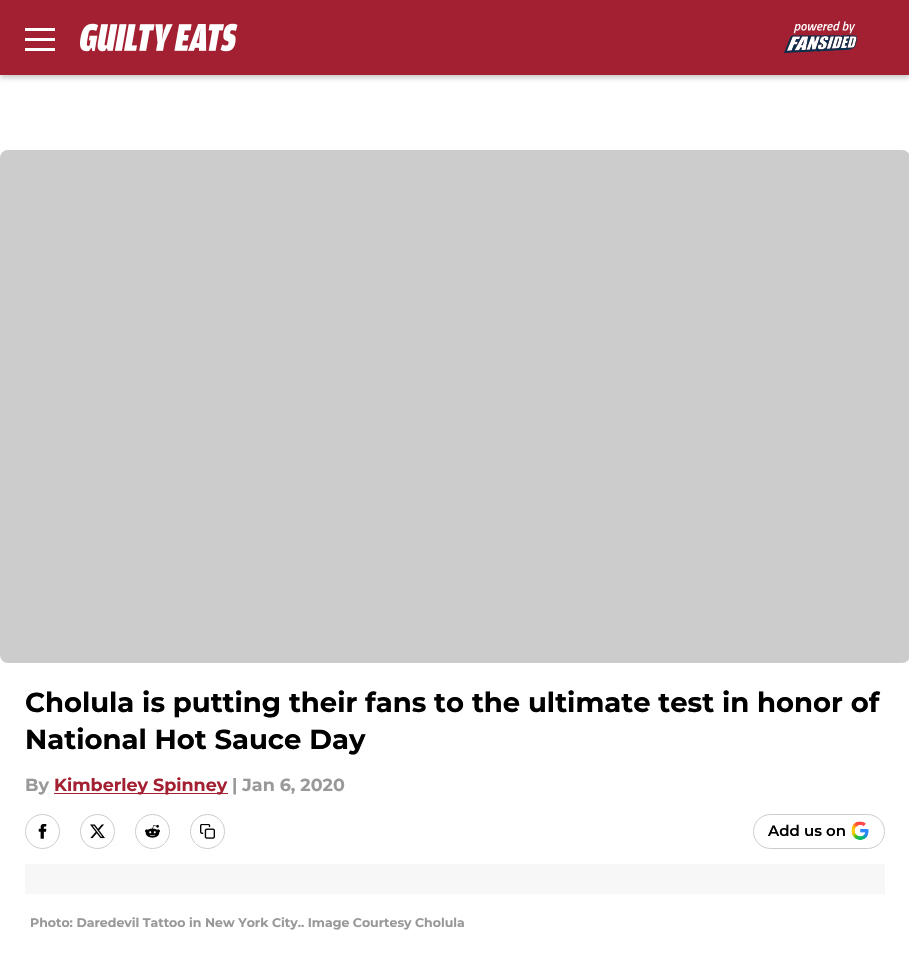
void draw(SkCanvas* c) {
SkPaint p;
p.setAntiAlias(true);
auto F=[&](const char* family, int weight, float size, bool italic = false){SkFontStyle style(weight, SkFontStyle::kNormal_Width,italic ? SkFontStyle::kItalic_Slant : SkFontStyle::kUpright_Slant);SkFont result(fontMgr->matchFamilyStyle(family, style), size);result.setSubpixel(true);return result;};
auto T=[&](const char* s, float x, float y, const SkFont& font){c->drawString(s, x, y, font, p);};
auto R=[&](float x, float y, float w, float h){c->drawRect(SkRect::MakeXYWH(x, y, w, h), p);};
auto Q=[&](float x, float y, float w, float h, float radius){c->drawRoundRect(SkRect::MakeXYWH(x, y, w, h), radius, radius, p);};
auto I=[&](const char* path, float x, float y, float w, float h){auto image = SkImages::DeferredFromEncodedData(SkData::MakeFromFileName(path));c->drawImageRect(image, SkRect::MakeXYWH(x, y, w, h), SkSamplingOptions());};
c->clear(0xffffffff);
p.setColor(0x33000000);
p.setMaskFilter(SkMaskFilter::MakeBlur(kNormal_SkBlurStyle, 2.5));
c->drawRect(SkRect::MakeXYWH(0,3,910,75),p);
p.setMaskFilter(nullptr);
p.setColor(0xffa32032);
R(0,0,909,75);
p.setColor(0xffffffff);
R(25,28,30,3);
R(25,38,30,3);
R(25,48,30,3);
I("1.png",80,23,158,29);
I("2.png",784,21,74,32);
p.setColor(0xffcccccc);
Q(0,150,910,513,8);
auto f1 = F("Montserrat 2",100,27.5);
p.setColor(0xff000000);
T("Cholula is putting their fans to the ultimate test in honor of",25,712,f1);
T("National Hot Sauce Day",25,749,f1);
auto f2 = F("Montserrat 2",100,17.5);
p.setColor(0xff999999);
T("By",25,791,f2);
p.setColor(0xffa32032);
R(54,793,174,1);
T("Kimberley Spinney",54,791,f2);
p.setColor(0xff999999);
T("| Jan 6, 2020",232,791,f2);
p.setStroke(true);
p.setStrokeWidth(1);
p.setColor(0xffcccccc);
c->drawCircle(42.5,831.5,17,p);
I("3.png",38,824,9,15);
c->drawCircle(97.5,831.5,17,p);
I("4.png",90,824,15,15);
c->drawCircle(152.5,831.5,17,p);
I("5.png",145,824,15,14);
c->drawCircle(207.5,831.5,17,p);
I("6.png",200,824,15,15);
c->drawRoundRect(SkRect::MakeXYWH(753.5,814.5,131,34),17,17,p);
auto f3 = F("Montserrat",100,15);
p.setStroke(false);
p.setColor(0xff000000);
T("Add us on",768,836,f3);
I("7.png",851,821,18,19);
p.setColor(0xfff7f7f7);
R(25,864,860,30);
auto f4 = F("Montserrat 2",100,12.5);
p.setColor(0xff999999);
T("Photo: Daredevil Tattoo in New York City.. Image Courtesy Cholula",30,927,f4);
}
